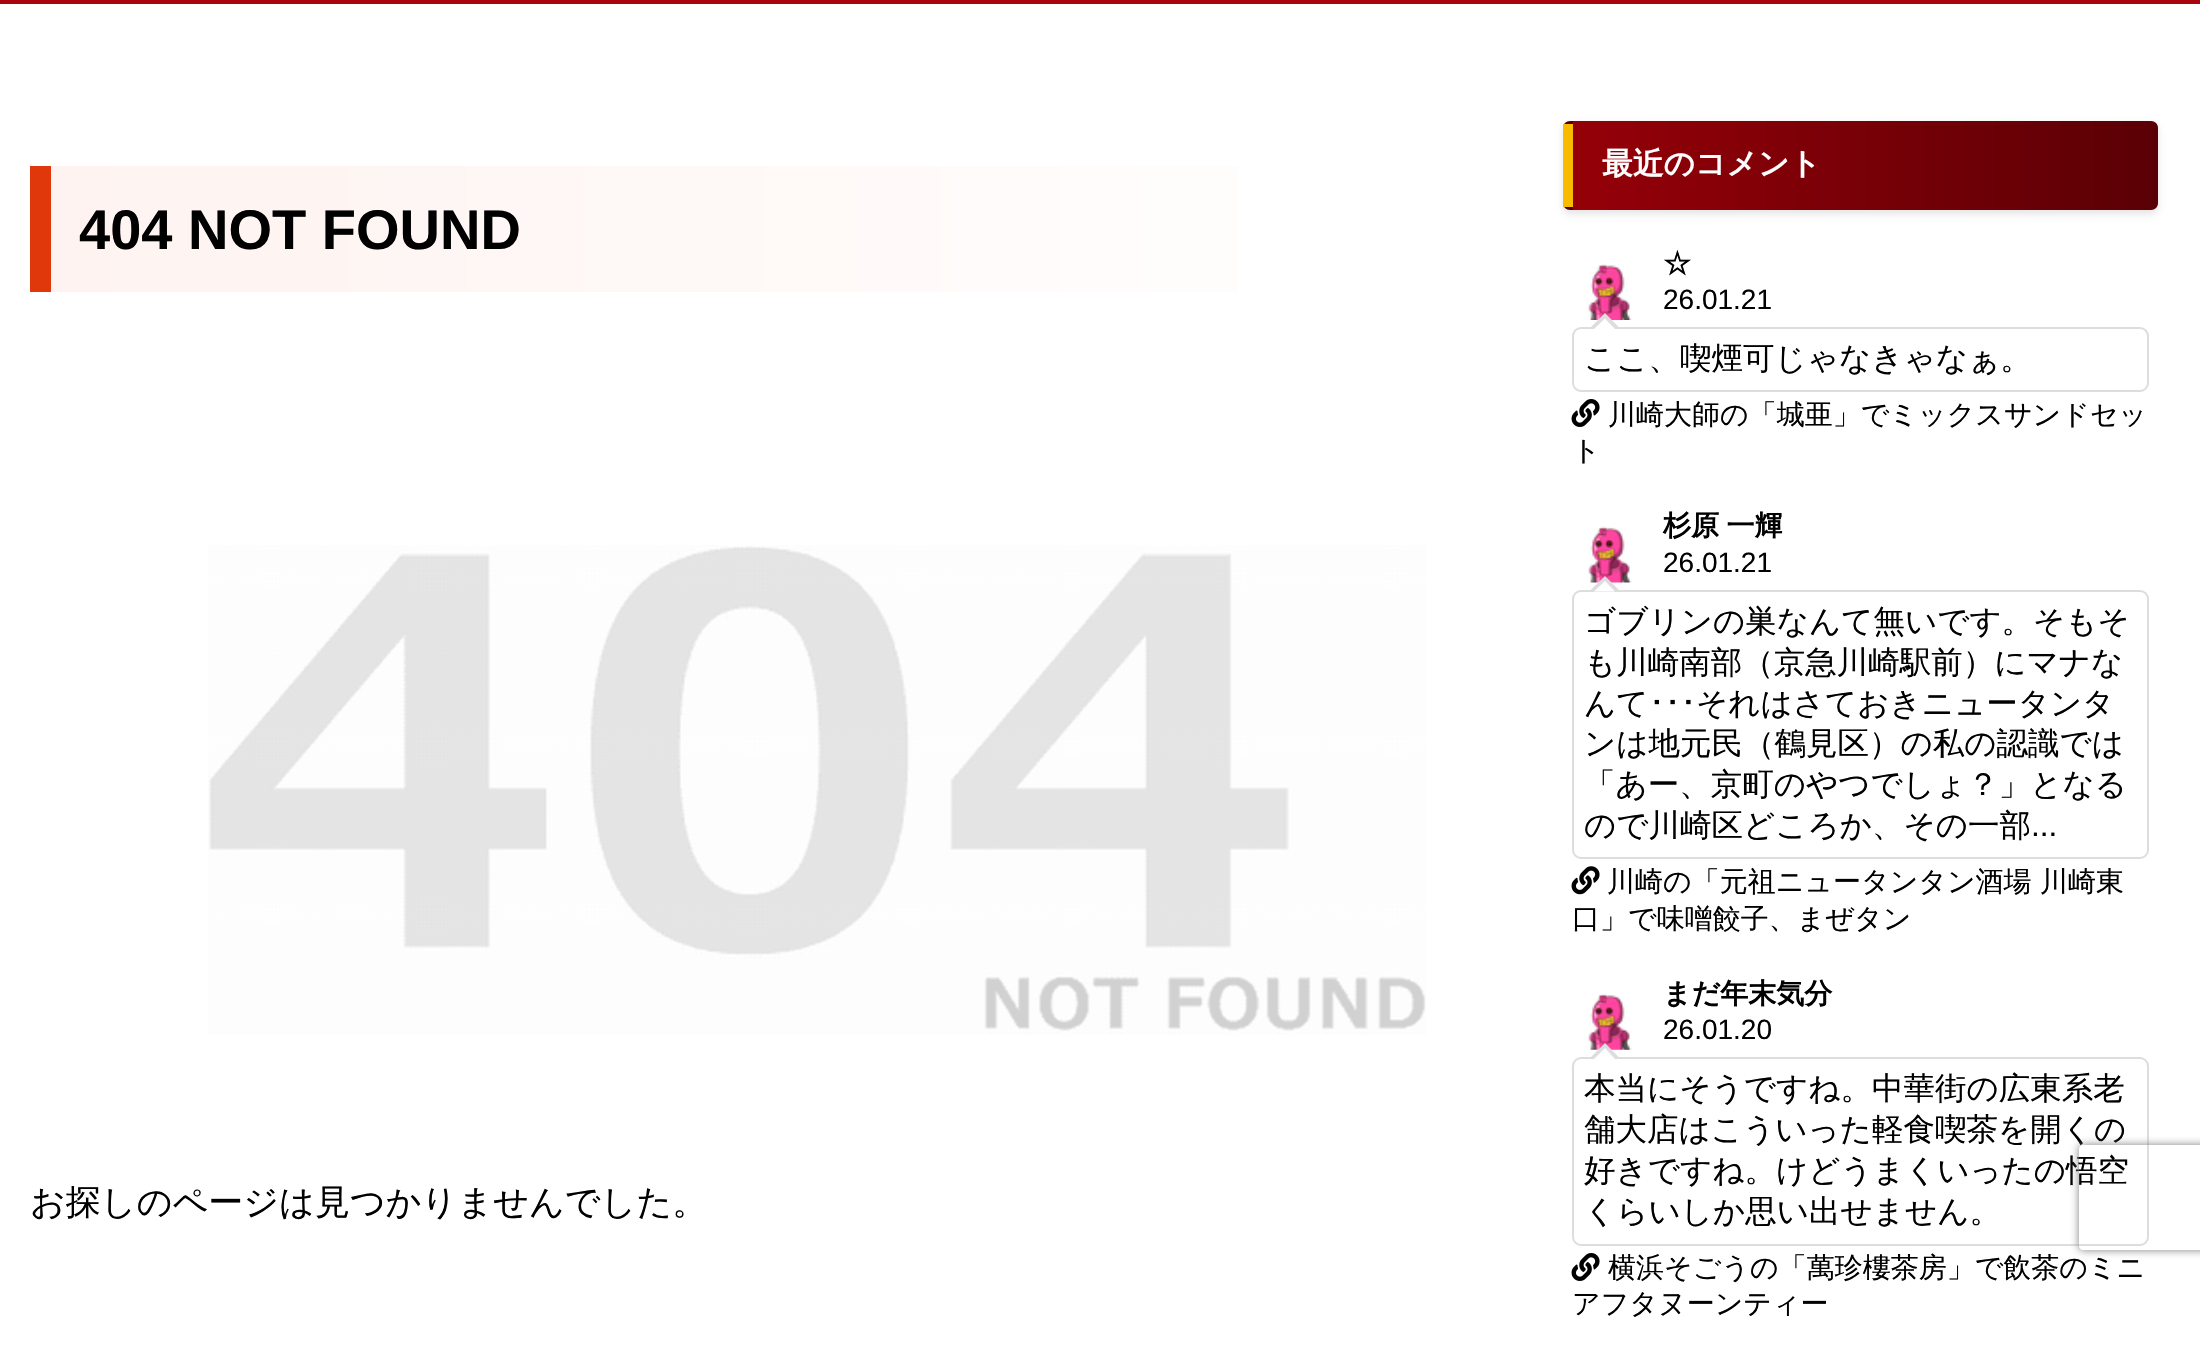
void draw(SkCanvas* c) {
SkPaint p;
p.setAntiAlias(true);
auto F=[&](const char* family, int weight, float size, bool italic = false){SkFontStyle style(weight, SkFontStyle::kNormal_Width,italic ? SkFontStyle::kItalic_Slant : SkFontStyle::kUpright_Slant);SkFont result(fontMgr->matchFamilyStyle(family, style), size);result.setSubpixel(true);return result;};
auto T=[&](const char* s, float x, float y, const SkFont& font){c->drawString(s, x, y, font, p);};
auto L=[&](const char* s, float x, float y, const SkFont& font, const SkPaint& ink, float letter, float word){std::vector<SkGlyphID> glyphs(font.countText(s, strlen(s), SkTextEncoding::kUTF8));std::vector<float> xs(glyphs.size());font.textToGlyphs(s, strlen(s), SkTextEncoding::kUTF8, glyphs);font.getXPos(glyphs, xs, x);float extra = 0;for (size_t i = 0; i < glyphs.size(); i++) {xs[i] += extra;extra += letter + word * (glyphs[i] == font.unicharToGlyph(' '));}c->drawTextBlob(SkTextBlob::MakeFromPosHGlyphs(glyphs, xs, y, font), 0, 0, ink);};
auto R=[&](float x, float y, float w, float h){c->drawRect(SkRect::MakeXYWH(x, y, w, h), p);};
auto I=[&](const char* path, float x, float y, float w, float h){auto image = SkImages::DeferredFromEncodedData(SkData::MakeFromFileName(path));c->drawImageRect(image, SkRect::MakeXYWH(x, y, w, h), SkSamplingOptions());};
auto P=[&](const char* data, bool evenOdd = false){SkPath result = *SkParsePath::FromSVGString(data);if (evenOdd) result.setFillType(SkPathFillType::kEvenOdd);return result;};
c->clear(0xffffffff);
p.setColor(0xffa8050e);
R(0,0,2200,4);
{
const SkColor colors[] = {0xfffef3f0,0xffffffff};
const float stops[] = {0,1};
const SkPoint ends[] = {{51,229}, {1475,229}};
p.setShader(SkGradientShader::MakeLinear(ends, colors, stops, 2, SkTileMode::kClamp));
p.setAlpha(255);
}
R(51,166,1187,126);
p.setShader(nullptr);
p.setColor(0xffe0370b);
R(30,166,21,126);
auto f1 = F("Liberation Sans",700,56);
p.setColor(0xff000000);
T("404 NOT FOUND",79,249,f1);
I("1.png",208,545,1218,490);
auto f2 = F("WenQuanYi Zen Hei",500,35);
T("お探しのページは見つかりませんでした。",30,1214,f2);
p.setColor(0x1a000000);
p.setMaskFilter(SkMaskFilter::MakeBlur(kNormal_SkBlurStyle, 3.5));
c->drawRoundRect(SkRect::MakeXYWH(1563,124,595,90),7,7,p);
p.setMaskFilter(nullptr);
{
const SkColor colors[] = {0xff950008,0xff5a0005};
const float stops[] = {0,1};
const SkPoint ends[] = {{989,165}, {1573,165}};
p.setShader(SkGradientShader::MakeLinear(ends, colors, stops, 2, SkTileMode::kClamp));
p.setAlpha(255);
}
c->drawPath(P("M1570 121h3v89h-3c-4 0-7-3-7-7v-75c0-4 3-7 7-7z"),p);
{
const SkColor colors[] = {0xff950008,0xff5a0005};
const float stops[] = {0,1};
const SkPoint ends[] = {{1573,165}, {2158,165}};
p.setShader(SkGradientShader::MakeLinear(ends, colors, stops, 2, SkTileMode::kClamp));
p.setAlpha(255);
}
c->drawPath(P("M1573 121h578c4 0 7 3 7 7v75c0 4-3 7-7 7h-578z"),p);
p.setShader(nullptr);
p.setColor(0xfff8bb00);
R(1563,124,10,83);
auto f3 = F("WenQuanYi Zen Hei",700,30.75);
p.setColor(0xffffffff);
T("最近のコメント",1602,174,f3);
I("2.png",1588,264,44,56);
auto f4 = F("WenQuanYi Zen Hei",700,28);
p.setColor(0xff000000);
T("☆",1663,273,f4);
auto f5 = F("Liberation Sans",400,28);
T("26.01.21",1663,309,f5);
p.setStroke(true);
p.setStrokeWidth(2);
p.setColor(0xffdddddd);
c->drawRoundRect(SkRect::MakeXYWH(1573,328,575,63),8,8,p);
p.setStroke(false);
c->drawPath(P("M1620.5 329h-31.5l16-16z"),p);
p.setColor(0xffffffff);
c->drawPath(P("M1615 329h-21l11-10.5z"),p);
auto f6 = F("WenQuanYi Zen Hei",500,31.5);
p.setColor(0xff000000);
T("ここ、喫煙可じゃなきゃなぁ。",1584,369,f6);
I("3.png",1571,399,29,28);
auto f7 = F("WenQuanYi Zen Hei",500,28);
T("川崎大師の「城亜」でミックスサンドセッ",1608,424,f7);
T("ト",1572,460,f7);
I("4.png",1588,526,44,57);
L("杉原 一輝",1663,535,f4,p,0,-1);
T("26.01.21",1663,572,f5);
p.setStroke(true);
p.setColor(0xffdddddd);
c->drawRoundRect(SkRect::MakeXYWH(1573,591,575,267),8,8,p);
p.setStroke(false);
c->drawPath(P("M1620.5 591.5h-31.5l16-15.5z"),p);
p.setColor(0xffffffff);
c->drawPath(P("M1615 591.5h-21l11-10.5z"),p);
p.setColor(0xff000000);
T("ゴブリンの巣なんて無いです。そもそ",1584,632,f6);
T("も川崎南部（京急川崎駅前）にマナな",1584,673,f6);
T("んて",1584,714,f6);
auto f8 = F("IPAPGothic",400,31.5);
T("･･･",1649,714,f8);
T("それはさておきニュータンタ",1696,714,f6);
T("ンは地元民（鶴見区）の私の認識では",1584,754,f6);
T("「あー、京町のやつでしょ？」となる",1584,795,f6);
T("ので川崎区どころか、その一部",1584,836,f6);
auto f9 = F("Liberation Sans",400,31.5);
T("...",2031,836,f9);
I("5.png",1571,866,29,29);
T("川崎の「元祖ニュータンタン酒場 川崎東",1607,891,f7);
T("口」で味噌餃子、まぜタン",1572,928,f7);
I("6.png",1588,993,44,57);
T("まだ年末気分",1663,1003,f4);
T("26.01.20",1663,1039,f5);
p.setStroke(true);
p.setColor(0xffdddddd);
c->drawRoundRect(SkRect::MakeXYWH(1573,1058,575,187),8,8,p);
p.setStroke(false);
c->drawPath(P("M1620.5 1059h-31.5l16-16z"),p);
p.setColor(0xffffffff);
c->drawPath(P("M1615 1059h-21l11-11z"),p);
p.setColor(0xff000000);
T("本当にそうですね。中華街の広東系老",1584,1099,f6);
T("舗大店はこういった軽食喫茶を開くの",1584,1140,f6);
T("好きですね。けどうまくいったの悟空",1584,1181,f6);
T("くらいしか思い出せません。",1584,1222,f6);
I("3.png",1571,1253,29,28);
T("横浜そごうの「萬珍樓茶房」で飲茶のミニ",1608,1277,f7);
T("アフタヌーンティー",1572,1313,f7);
c->save();
c->clipPath(P("M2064 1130h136v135h-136zm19 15h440c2 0 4 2 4 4v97c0 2-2 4-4 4h-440c-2 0-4-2-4-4v-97c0-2 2-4 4-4z",true),true);
p.setColor(0xff808080);
p.setMaskFilter(SkMaskFilter::MakeBlur(kNormal_SkBlurStyle, 4.5));
c->drawRoundRect(SkRect::MakeXYWH(2079,1145,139,105),4,4,p);
p.setMaskFilter(nullptr);
c->restore();
}
